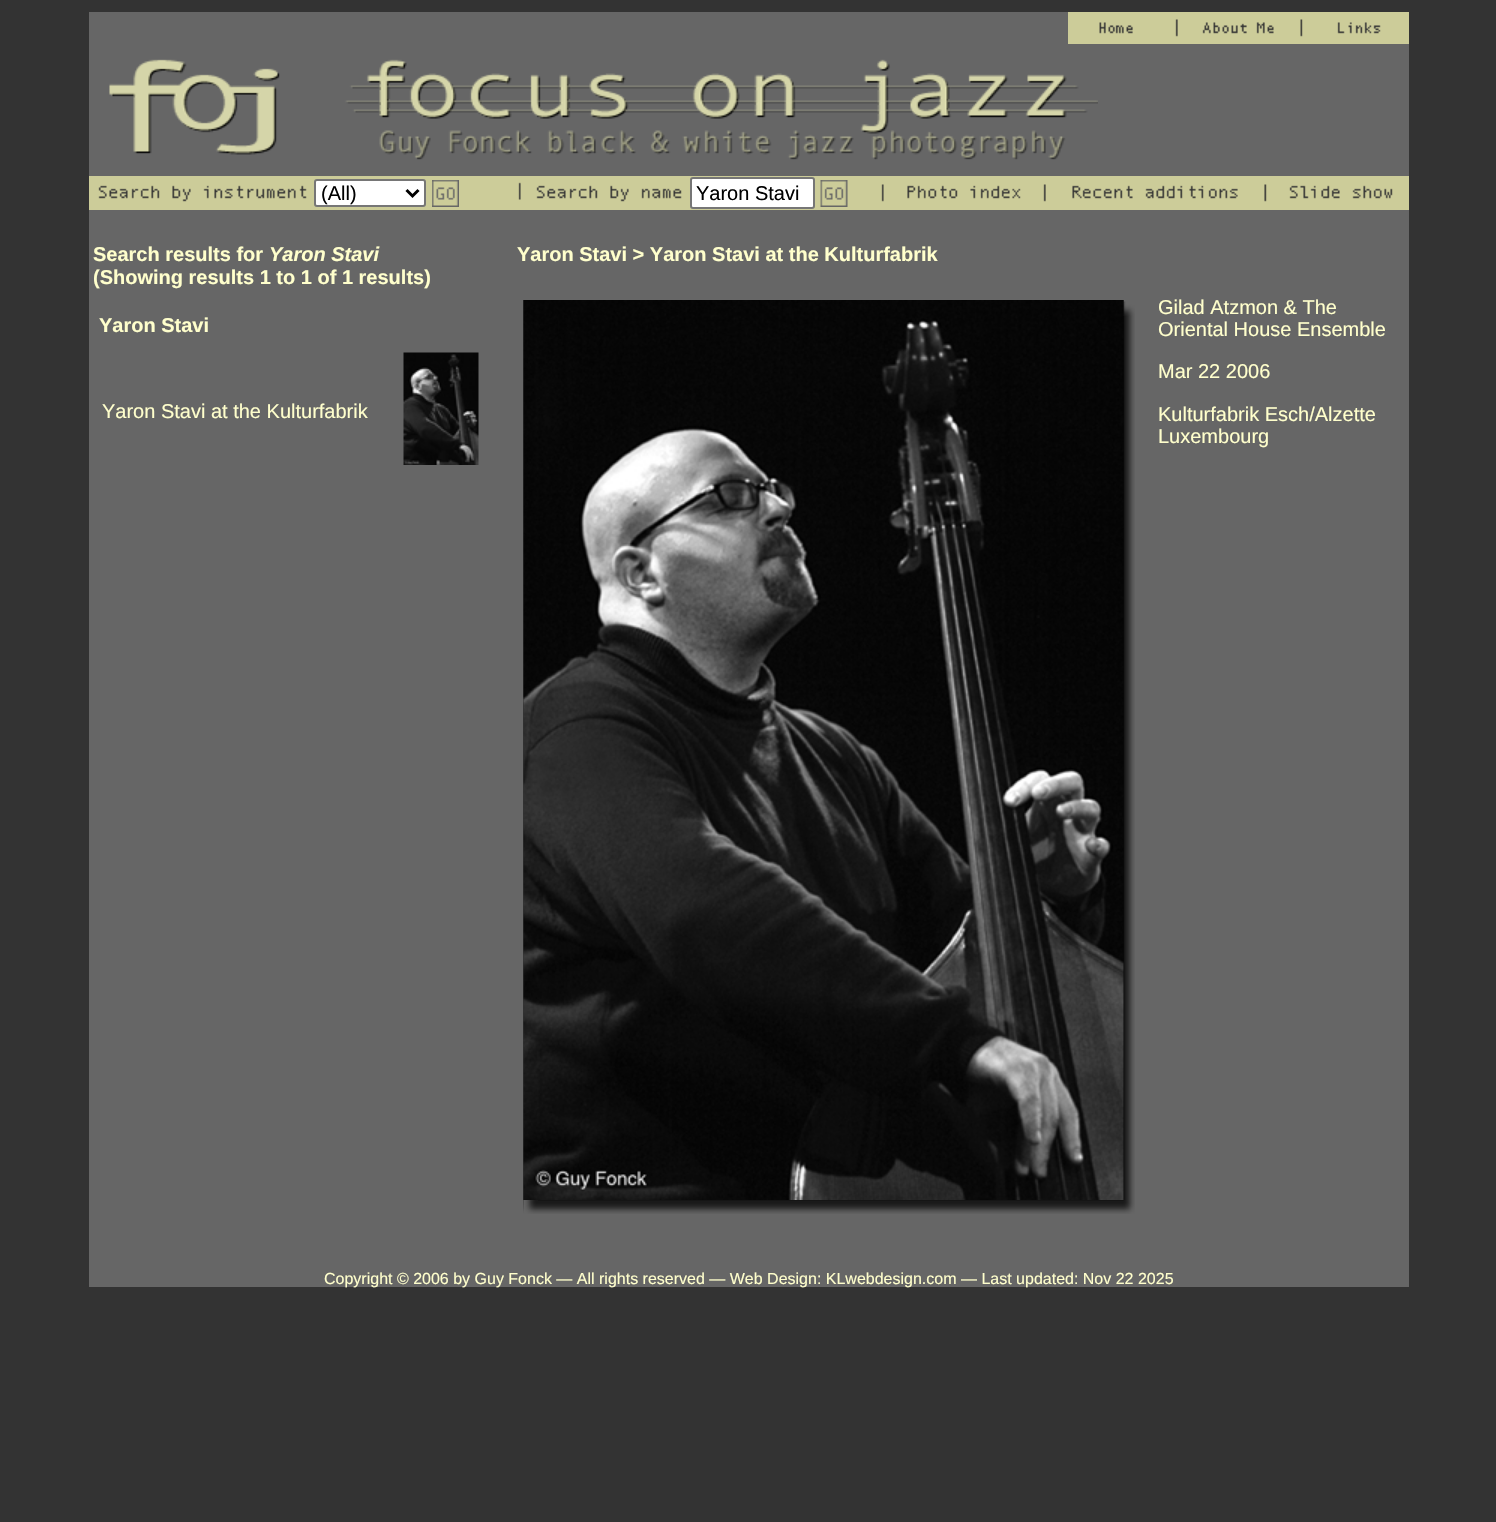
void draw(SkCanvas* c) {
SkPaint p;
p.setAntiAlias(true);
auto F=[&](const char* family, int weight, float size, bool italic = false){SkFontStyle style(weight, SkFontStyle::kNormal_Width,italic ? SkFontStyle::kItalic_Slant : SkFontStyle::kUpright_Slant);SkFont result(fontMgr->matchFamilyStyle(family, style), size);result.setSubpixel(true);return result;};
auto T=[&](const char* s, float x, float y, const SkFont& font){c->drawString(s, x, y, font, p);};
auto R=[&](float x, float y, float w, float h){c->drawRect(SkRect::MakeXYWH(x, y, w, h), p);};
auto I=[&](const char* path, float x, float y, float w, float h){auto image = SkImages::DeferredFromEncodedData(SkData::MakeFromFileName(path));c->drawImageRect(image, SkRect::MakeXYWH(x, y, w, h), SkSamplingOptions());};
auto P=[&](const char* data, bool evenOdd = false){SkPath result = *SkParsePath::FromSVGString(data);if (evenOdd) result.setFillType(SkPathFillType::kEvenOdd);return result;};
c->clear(0xff333333);
p.setColor(0xff666666);
R(89,12,1320,1275);
p.setColor(0xffcccc99);
R(1068,12,341,32);
I("1.png",1099,22,34,12);
I("2.png",1175,19,3,18);
I("3.png",1202,22,72,12);
I("4.png",1300,19,3,18);
I("5.png",1337,22,44,12);
I("6.png",109,59,989,101);
R(89,176,1320,34);
I("7.png",98,185,209,17);
p.setColor(0xffffffff);
c->drawRoundRect(SkRect::MakeXYWH(315,180,110,26),2,2,p);
p.setStroke(true);
p.setStrokeWidth(2);
p.setColor(0xff767676);
c->drawRoundRect(SkRect::MakeXYWH(315,180,110,26),2,2,p);
p.setStrokeWidth(3);
p.setColor(0xff000000);
c->drawPath(P("M406.5 190l6 6l6-6"),p);
auto f1 = F("Liberation Sans",400,20);
p.setStroke(false);
T("(All)",321,200,f1);
I("8.png",432,180,27,27);
I("9.png",518,182,3,18);
I("10.png",536,185,146,17);
p.setColor(0xffffffff);
c->drawRoundRect(SkRect::MakeXYWH(691,178,123,30),2,2,p);
p.setStroke(true);
p.setStrokeWidth(2);
p.setColor(0xff767676);
c->drawRoundRect(SkRect::MakeXYWH(691,178,123,30),2,2,p);
p.setStroke(false);
p.setColor(0xff000000);
T("Yaron Stavi",696,200,f1);
I("11.png",820,180,28,27);
I("12.png",881,184,3,18);
I("13.png",907,185,114,14);
I("2.png",1043,184,3,18);
I("14.png",1072,185,166,14);
I("15.png",1264,184,3,18);
I("16.png",1289,185,104,14);
auto f2 = F("Liberation Sans",700,20);
p.setColor(0xffffffcc);
T("Search results for",93,261,f2);
auto f3 = F("Liberation Sans",700,20,true);
T("Yaron Stavi",269,261,f3);
T("(Showing results 1 to 1 of 1 results)",93,284,f2);
T("Yaron Stavi",99,332,f2);
T("Yaron Stavi at the Kulturfabrik",102,418,f1);
I("17.png",403,352,76,113);
T("Yaron Stavi > Yaron Stavi at the Kulturfabrik",517,261,f2);
I("18.png",523,300,612,914);
I("19.png",523,1200,15,14);
I("20.png",1123,300,12,16);
I("21.png",523,300,601,900);
T("Gilad Atzmon & The",1158,314,f1);
T("Oriental House Ensemble",1158,336,f1);
T("Mar 22 2006",1158,378,f1);
T("Kulturfabrik Esch/Alzette",1158,421,f1);
T("Luxembourg",1158,443,f1);
auto f4 = F("Liberation Sans",400,16);
T("Copyright © 2006 by Guy Fonck — All rights reserved — Web Design: KLwebdesign.com — Last updated: Nov 22 2025",324,1284,f4);
}
